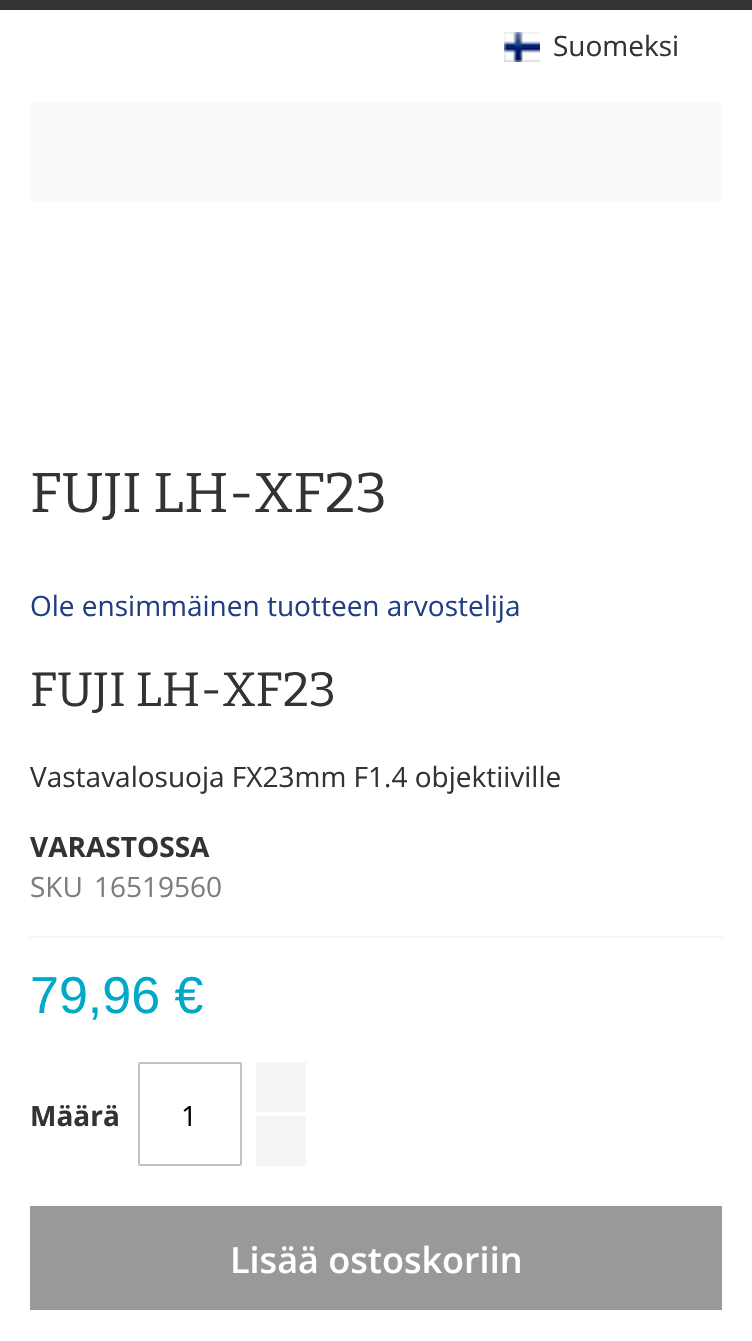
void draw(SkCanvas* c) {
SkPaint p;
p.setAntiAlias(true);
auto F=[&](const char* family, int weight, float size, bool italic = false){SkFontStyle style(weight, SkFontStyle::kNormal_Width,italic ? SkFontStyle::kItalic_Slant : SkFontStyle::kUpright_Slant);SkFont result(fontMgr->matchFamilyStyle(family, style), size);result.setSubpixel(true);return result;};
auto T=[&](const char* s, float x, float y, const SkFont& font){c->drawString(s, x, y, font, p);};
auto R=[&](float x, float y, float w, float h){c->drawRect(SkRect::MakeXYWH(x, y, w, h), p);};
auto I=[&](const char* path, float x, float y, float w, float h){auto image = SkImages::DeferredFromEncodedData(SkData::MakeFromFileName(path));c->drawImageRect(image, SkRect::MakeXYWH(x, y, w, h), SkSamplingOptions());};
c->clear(0xffffffff);
p.setColor(0xff333333);
R(0,0,752,10);
I("1.png",504,32,36,30);
auto f1 = F("Open Sans",400,28);
T("Suomeksi",553,56,f1);
p.setColor(0xfffafafa);
R(30,102,692,100);
auto f2 = F("Bitter",100,56);
p.setColor(0xff333333);
T("FUJI LH-XF23",30,512,f2);
p.setColor(0xff223f86);
T("Ole ensimmäinen tuotteen arvostelija",30,616,f1);
auto f3 = F("Bitter",100,48);
p.setColor(0xff333333);
T("FUJI LH-XF23",30,706,f3);
T("Vastavalosuoja FX23mm F1.4 objektiiville",30,787,f1);
p.setColor(0xfff5f5f5);
R(30,936,692,2);
auto f4 = F("Open Sans",700,28);
p.setColor(0xff333333);
T("VARASTOSSA",30,857,f4);
p.setColor(0xff7d7d7d);
T("SKU",30,897,f1);
T("16519560",94,897,f1);
auto f5 = F("Liberation Sans",400,52);
p.setColor(0xff00a9c7);
T("79,96 €",30,1013,f5);
p.setColor(0xff333333);
T("Määrä",30,1126,f4);
p.setStroke(true);
p.setStrokeWidth(2);
p.setColor(0xffc2c2c2);
c->drawRoundRect(SkRect::MakeXYWH(139,1063,102,102),1,1,p);
p.setStroke(false);
p.setColor(0xff000000);
T("1",181,1126,f1);
p.setColor(0xfff5f5f5);
R(256,1062,50,50);
R(256,1116,50,50);
p.setColor(0xff999999);
R(30,1206,692,104);
auto f6 = F("Open Sans",600,36);
p.setColor(0xffffffff);
T("Lisää ostoskoriin",230,1273,f6);
}
